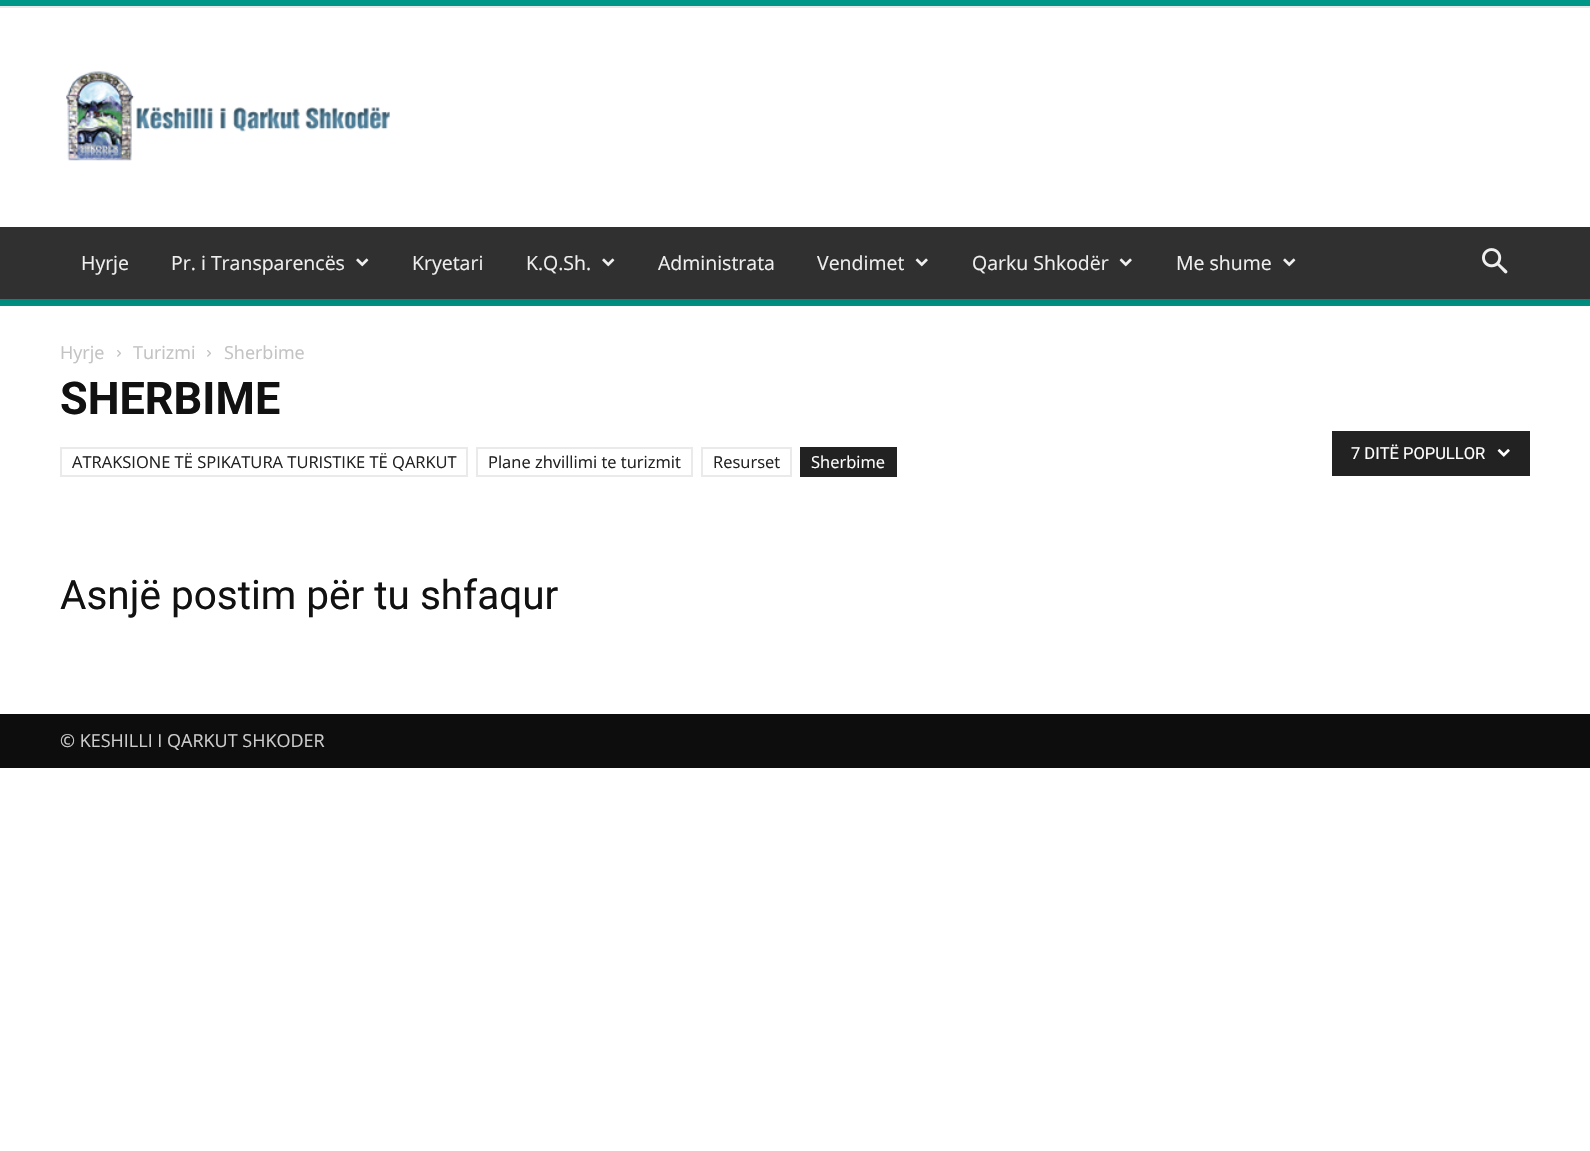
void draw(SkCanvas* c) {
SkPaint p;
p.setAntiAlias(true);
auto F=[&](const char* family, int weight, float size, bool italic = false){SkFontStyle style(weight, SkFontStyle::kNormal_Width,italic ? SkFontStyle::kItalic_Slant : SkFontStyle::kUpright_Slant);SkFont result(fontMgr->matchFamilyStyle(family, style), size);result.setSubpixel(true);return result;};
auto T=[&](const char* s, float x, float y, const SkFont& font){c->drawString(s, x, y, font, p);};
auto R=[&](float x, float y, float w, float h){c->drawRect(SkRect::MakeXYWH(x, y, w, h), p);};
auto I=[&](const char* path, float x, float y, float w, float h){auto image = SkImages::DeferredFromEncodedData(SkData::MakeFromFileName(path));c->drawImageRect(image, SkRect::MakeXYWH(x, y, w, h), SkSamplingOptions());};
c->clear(0xffffffff);
p.setColor(0xff009688);
R(0,0,1590,6);
p.setColor(0xffe9e9e9);
R(0,6,1590,2);
I("1.png",66,71,324,90);
p.setColor(0xff303030);
R(0,227,1590,72);
auto f1 = F("Open Sans",400,19.5);
p.setColor(0xffefefef);
T("Hyrje",81,270,f1);
T("Pr. i Transparencës",171,270,f1);
I("2.png",356,258,13,9);
T("Kryetari",412,270,f1);
T("K.Q.Sh.",526,270,f1);
I("2.png",602,258,13,9);
T("Administrata",658,270,f1);
T("Vendimet",817,270,f1);
I("3.png",915,258,13,9);
T("Qarku Shkodër",972,270,f1);
I("3.png",1119,258,13,9);
T("Me shume",1176,270,f1);
I("2.png",1283,258,13,9);
I("4.png",1482,248,26,26);
p.setColor(0xff009688);
R(0,299,1590,7);
I("5.png",0,299,1590,7);
auto f2 = F("Open Sans",400,18);
p.setColor(0xffc3c3c3);
T("Hyrje",60,359,f2);
I("6.png",117,350,4,7);
T("Turizmi",133,359,f2);
I("6.png",207,350,4,7);
T("Sherbime",224,359,f2);
auto f3 = F("Roboto",700,45);
p.setColor(0xff111111);
T("SHERBIME",60,414,f3);
p.setStroke(true);
p.setStrokeWidth(2);
p.setColor(0xffeaeaea);
c->drawRect(SkRect::MakeXYWH(61,448,406,28),p);
auto f4 = F("Open Sans",400,16.5);
p.setStroke(false);
p.setColor(0xff222222);
T("ATRAKSIONE TË SPIKATURA TURISTIKE TË QARKUT",72,468,f4);
p.setStroke(true);
p.setColor(0xffeaeaea);
c->drawRect(SkRect::MakeXYWH(477,448,215,28),p);
p.setStroke(false);
p.setColor(0xff222222);
T("Plane zhvillimi te turizmit",488,468,f4);
p.setStroke(true);
p.setColor(0xffeaeaea);
c->drawRect(SkRect::MakeXYWH(702,448,89,28),p);
p.setStroke(false);
p.setColor(0xff222222);
T("Resurset",713,468,f4);
R(800,447,97,30);
p.setColor(0xffffffff);
T("Sherbime",811,468,f4);
p.setColor(0xff222222);
R(1332,431,198,45);
auto f5 = F("Roboto",400,16.5);
p.setColor(0xffffffff);
T("7 DITË POPULLOR",1351,459,f5);
I("7.png",1497,449,13,8);
auto f6 = F("Roboto",400,40.5);
p.setColor(0xff111111);
T("Asnjë postim për tu shfaqur",60,609,f6);
p.setColor(0xff0d0d0d);
R(0,714,1590,54);
p.setColor(0xffcccccc);
T("© KESHILLI I QARKUT SHKODER",60,747,f2);
}
